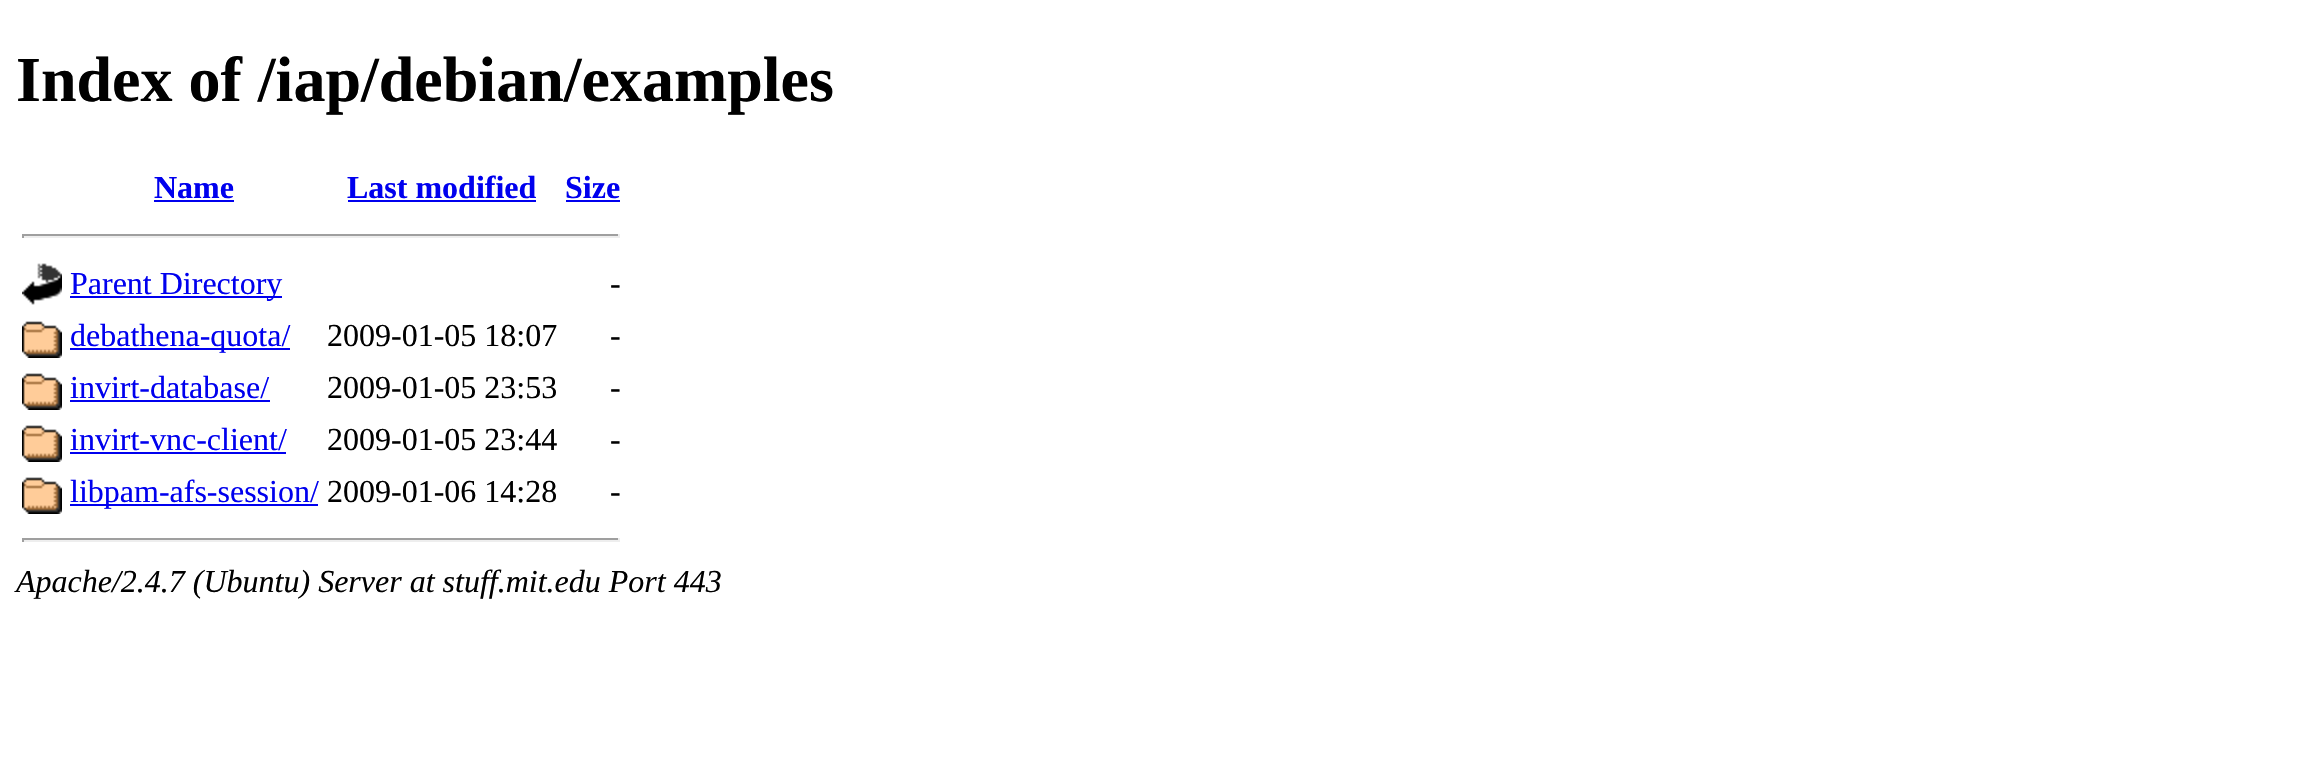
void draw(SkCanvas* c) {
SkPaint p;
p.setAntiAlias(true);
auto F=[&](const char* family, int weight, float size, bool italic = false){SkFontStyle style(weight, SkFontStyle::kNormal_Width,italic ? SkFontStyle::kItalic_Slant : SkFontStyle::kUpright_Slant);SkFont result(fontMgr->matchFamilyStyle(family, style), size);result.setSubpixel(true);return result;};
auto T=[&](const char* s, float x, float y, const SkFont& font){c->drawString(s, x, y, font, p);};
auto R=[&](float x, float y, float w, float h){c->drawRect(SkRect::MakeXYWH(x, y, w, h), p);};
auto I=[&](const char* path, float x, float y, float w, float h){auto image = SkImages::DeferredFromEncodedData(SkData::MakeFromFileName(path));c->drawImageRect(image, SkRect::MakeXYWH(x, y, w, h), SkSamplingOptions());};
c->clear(0xffffffff);
auto f1 = F("Liberation Serif",700,64);
p.setColor(0xff000000);
T("Index of /iap/debian/examples",16,101,f1);
auto f2 = F("Liberation Serif",700,32);
p.setColor(0xff0000ee);
T("Name",154,198,f2);
R(154,200,80,2);
T("Last modified",347,198,f2);
R(348,200,188,2);
T("Size",565,198,f2);
R(566,200,54,2);
p.setColor(0xff9f9f9f);
R(22,234,598,2);
p.setColor(0xffeeeeee);
R(618,234,2,4);
R(22,236,598,2);
p.setColor(0xff9f9f9f);
R(22,234,2,4);
I("1.png",22,263,40,42);
p.setColor(0xff0000ee);
R(70,296,212,2);
auto f3 = F("Liberation Serif",400,32);
T("Parent Directory",70,294,f3);
p.setColor(0xff000000);
T("-",610,294,f3);
I("2.png",22,321,40,37);
p.setColor(0xff0000ee);
R(70,348,220,2);
T("debathena-quota/",70,346,f3);
p.setColor(0xff000000);
T("2009-01-05 18:07",327,346,f3);
T("-",610,346,f3);
I("2.png",22,373,40,37);
p.setColor(0xff0000ee);
T("invirt-database/",70,398,f3);
R(70,400,200,2);
p.setColor(0xff000000);
T("2009-01-05 23:53",327,398,f3);
T("-",610,398,f3);
I("2.png",22,425,40,37);
p.setColor(0xff0000ee);
T("invirt-vnc-client/",70,450,f3);
R(70,452,216,2);
p.setColor(0xff000000);
T("2009-01-05 23:44",327,450,f3);
T("-",610,450,f3);
I("2.png",22,477,40,37);
p.setColor(0xff0000ee);
R(70,504,248,2);
T("libpam-afs-session/",70,502,f3);
p.setColor(0xff000000);
T("2009-01-06 14:28",327,502,f3);
T("-",610,502,f3);
p.setColor(0xff9f9f9f);
R(22,538,598,2);
p.setColor(0xffeeeeee);
R(618,538,2,4);
R(22,540,598,2);
p.setColor(0xff9f9f9f);
R(22,538,2,4);
auto f4 = F("Liberation Serif",400,32,true);
p.setColor(0xff000000);
T("Apache/2.4.7 (Ubuntu) Server at stuff.mit.edu Port 443",16,592,f4);
}
